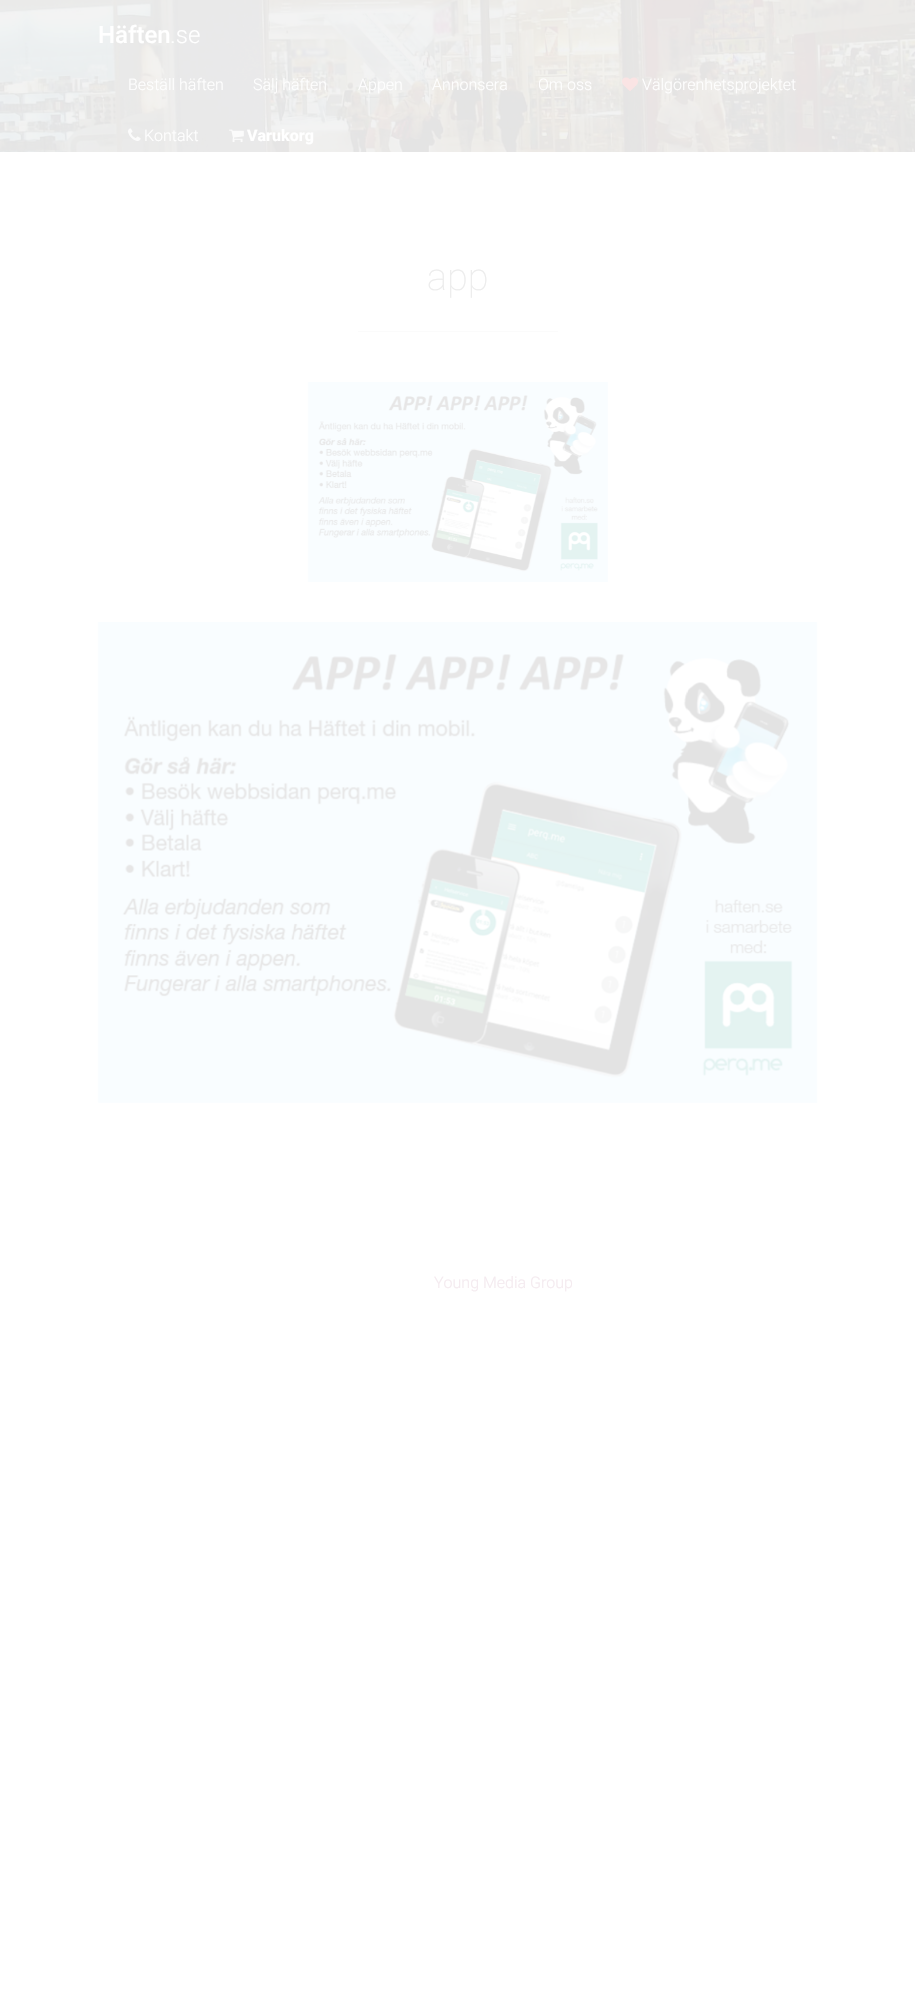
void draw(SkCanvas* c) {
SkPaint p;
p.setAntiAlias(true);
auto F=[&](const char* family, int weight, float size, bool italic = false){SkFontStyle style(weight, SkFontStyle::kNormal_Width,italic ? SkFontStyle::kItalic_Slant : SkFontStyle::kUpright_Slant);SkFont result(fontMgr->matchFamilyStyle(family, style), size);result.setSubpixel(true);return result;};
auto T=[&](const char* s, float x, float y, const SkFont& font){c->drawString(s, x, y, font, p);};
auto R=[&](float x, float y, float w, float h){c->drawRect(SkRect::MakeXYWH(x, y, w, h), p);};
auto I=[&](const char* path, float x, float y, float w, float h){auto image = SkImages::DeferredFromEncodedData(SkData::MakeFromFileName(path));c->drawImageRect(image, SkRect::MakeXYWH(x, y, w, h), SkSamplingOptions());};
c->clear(0xffffffff);
I("1.png",0,0,915,152);
auto f1 = F("Roboto",500,24);
p.setColor(0xffffffff);
T("Häften",98,43,f1);
auto f2 = F("Roboto",300,24);
T(".se",170,43,f2);
auto f3 = F("Roboto",300,16);
T("Beställ häften",128,90,f3);
T("Sälj häften",253,90,f3);
T("Appen",358,90,f3);
T("Annonsera",432,90,f3);
T("Om oss",538,90,f3);
I("2.png",622,77,16,14);
T("Välgörenhetsprojektet",642,90,f3);
I("3.png",128,128,13,13);
T("Kontakt",144,141,f3);
I("4.png",229,129,15,14);
auto f4 = F("Roboto",800,16);
T("Varukorg",247,141,f4);
auto f5 = F("Roboto",100,38);
p.setColor(0xffececec);
T("app",427,290,f5);
p.setColor(0xfffbfbfb);
R(358,331,200,1);
I("5.png",307,382,301,200);
I("6.png",97,622,721,481);
p.setColor(0xfff4eaef);
T("Young Media Group",434,1288,f3);
}
